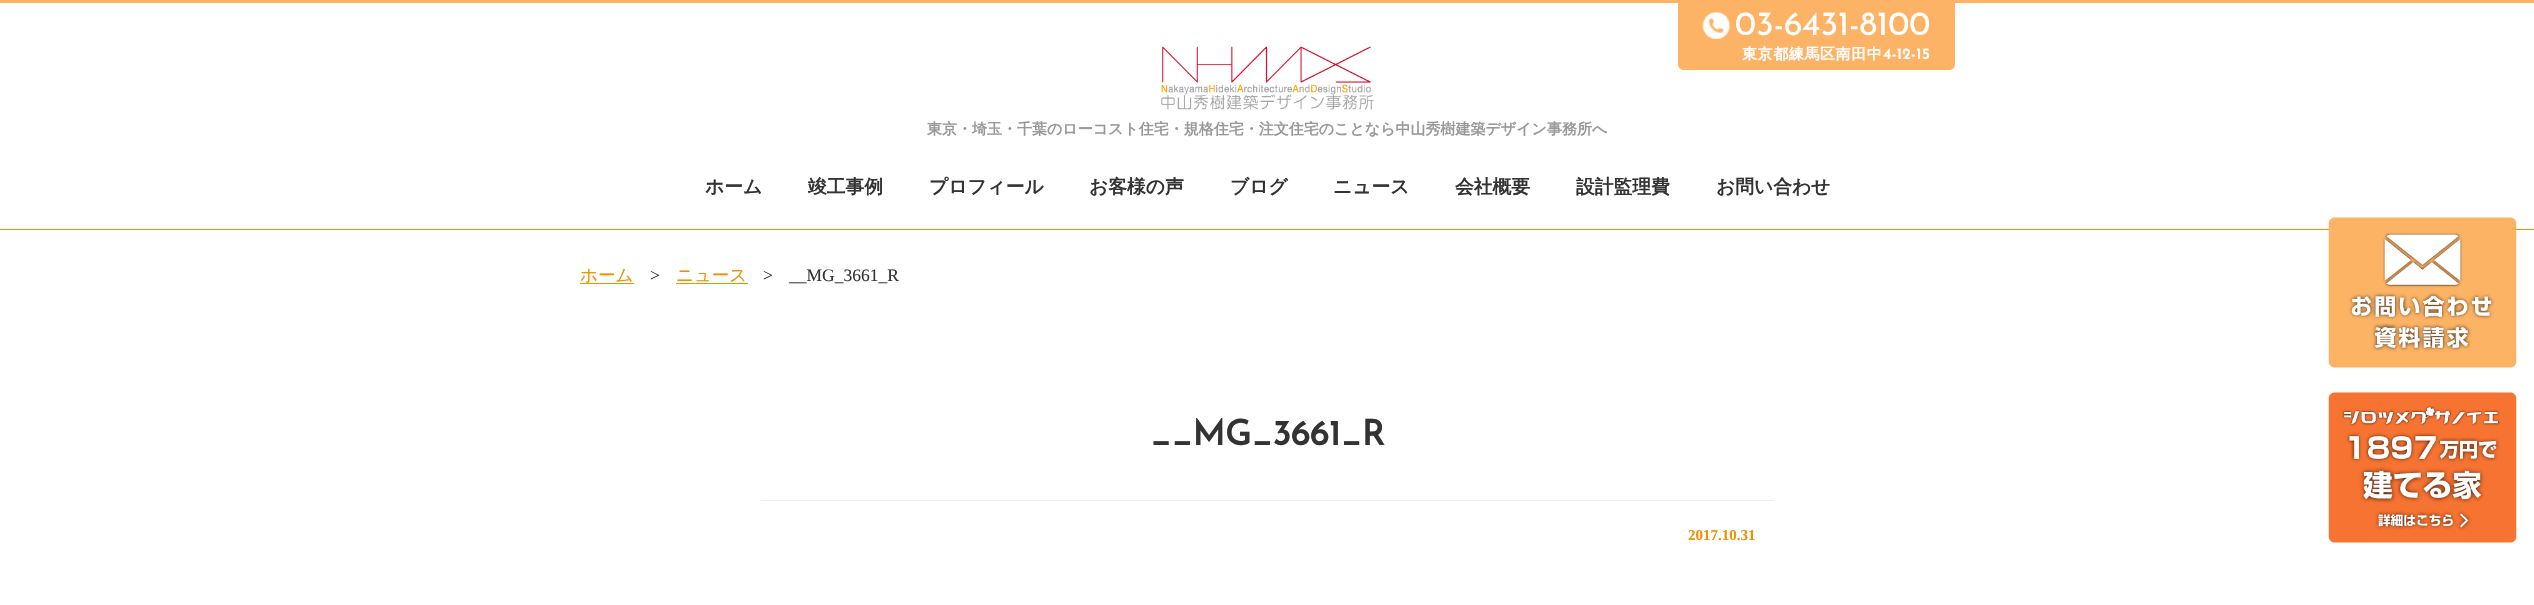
void draw(SkCanvas* c) {
SkPaint p;
p.setAntiAlias(true);
auto F=[&](const char* family, int weight, float size, bool italic = false){SkFontStyle style(weight, SkFontStyle::kNormal_Width,italic ? SkFontStyle::kItalic_Slant : SkFontStyle::kUpright_Slant);SkFont result(fontMgr->matchFamilyStyle(family, style), size);result.setSubpixel(true);return result;};
auto T=[&](const char* s, float x, float y, const SkFont& font){c->drawString(s, x, y, font, p);};
auto L=[&](const char* s, float x, float y, const SkFont& font, const SkPaint& ink, float letter, float word){std::vector<SkGlyphID> glyphs(font.countText(s, strlen(s), SkTextEncoding::kUTF8));std::vector<float> xs(glyphs.size());font.textToGlyphs(s, strlen(s), SkTextEncoding::kUTF8, glyphs);font.getXPos(glyphs, xs, x);float extra = 0;for (size_t i = 0; i < glyphs.size(); i++) {xs[i] += extra;extra += letter + word * (glyphs[i] == font.unicharToGlyph(' '));}c->drawTextBlob(SkTextBlob::MakeFromPosHGlyphs(glyphs, xs, y, font), 0, 0, ink);};
auto R=[&](float x, float y, float w, float h){c->drawRect(SkRect::MakeXYWH(x, y, w, h), p);};
auto I=[&](const char* path, float x, float y, float w, float h){auto image = SkImages::DeferredFromEncodedData(SkData::MakeFromFileName(path));c->drawImageRect(image, SkRect::MakeXYWH(x, y, w, h), SkSamplingOptions());};
auto P=[&](const char* data, bool evenOdd = false){SkPath result = *SkParsePath::FromSVGString(data);if (evenOdd) result.setFillType(SkPathFillType::kEvenOdd);return result;};
c->clear(0xffffffff);
p.setColor(0xfffdb365);
R(0,0,2534,3);
c->drawPath(P("M1678 3h277v61c0 3.5-2.5 6-6 6h-265c-3.5 0-6-2.5-6-6z"),p);
I("1.png",1702,12,28,27);
auto f1 = F("Josefin Sans",100,33.75);
p.setColor(0xffffffff);
T("03-6431-8100",1735,35,f1);
auto f2 = F("WenQuanYi Zen Hei",700,15);
L("東京都練馬区南田中",1742,59,f2,p,.6,0);
auto f3 = F("Josefin Sans",700,15);
L("4-12-15",1883,59,f3,p,.6,0);
I("2.png",1161,46,213,64);
p.setColor(0xff999999);
T("東京・埼玉・千葉のローコスト住宅・規格住宅・注文住宅のことなら中山秀樹建築デザイン事務所へ",927,134,f2);
auto f4 = F("WenQuanYi Zen Hei",700,18.75);
p.setColor(0xff333333);
T("ホーム",705,193,f4);
T("竣工事例",808,193,f4);
T("プロフィール",929,193,f4);
T("お客様の声",1089,193,f4);
T("ブログ",1230,193,f4);
T("ニュース",1333,193,f4);
T("会社概要",1455,193,f4);
T("設計監理費",1576,193,f4);
T("お問い合わせ",1716,193,f4);
p.setColor(0xfff09100);
R(0,229,2534,1);
auto f5 = F("WenQuanYi Zen Hei",500,17.5);
T("ホーム",580,281,f5);
R(580,283,54,1);
auto f6 = F("Liberation Serif",400,17.5);
p.setColor(0xff333333);
T(">",650,281,f6);
p.setColor(0xfff09100);
T("ニュース",676,281,f5);
R(676,283,72,1);
p.setColor(0xff333333);
T(">",763,281,f6);
T("__MG_3661_R",789,281,f6);
p.setColor(0xffefefef);
R(761,500,1013,1);
auto f7 = F("Josefin Sans",700,35);
p.setColor(0xff333333);
T("__MG_3661_R",1150,445,f7);
auto f8 = F("Liberation Serif",700,15);
p.setColor(0xfff09100);
T("2017.10.31",1688,540,f8);
I("3.png",2328,217,189,151);
I("4.png",2328,392,189,151);
}
